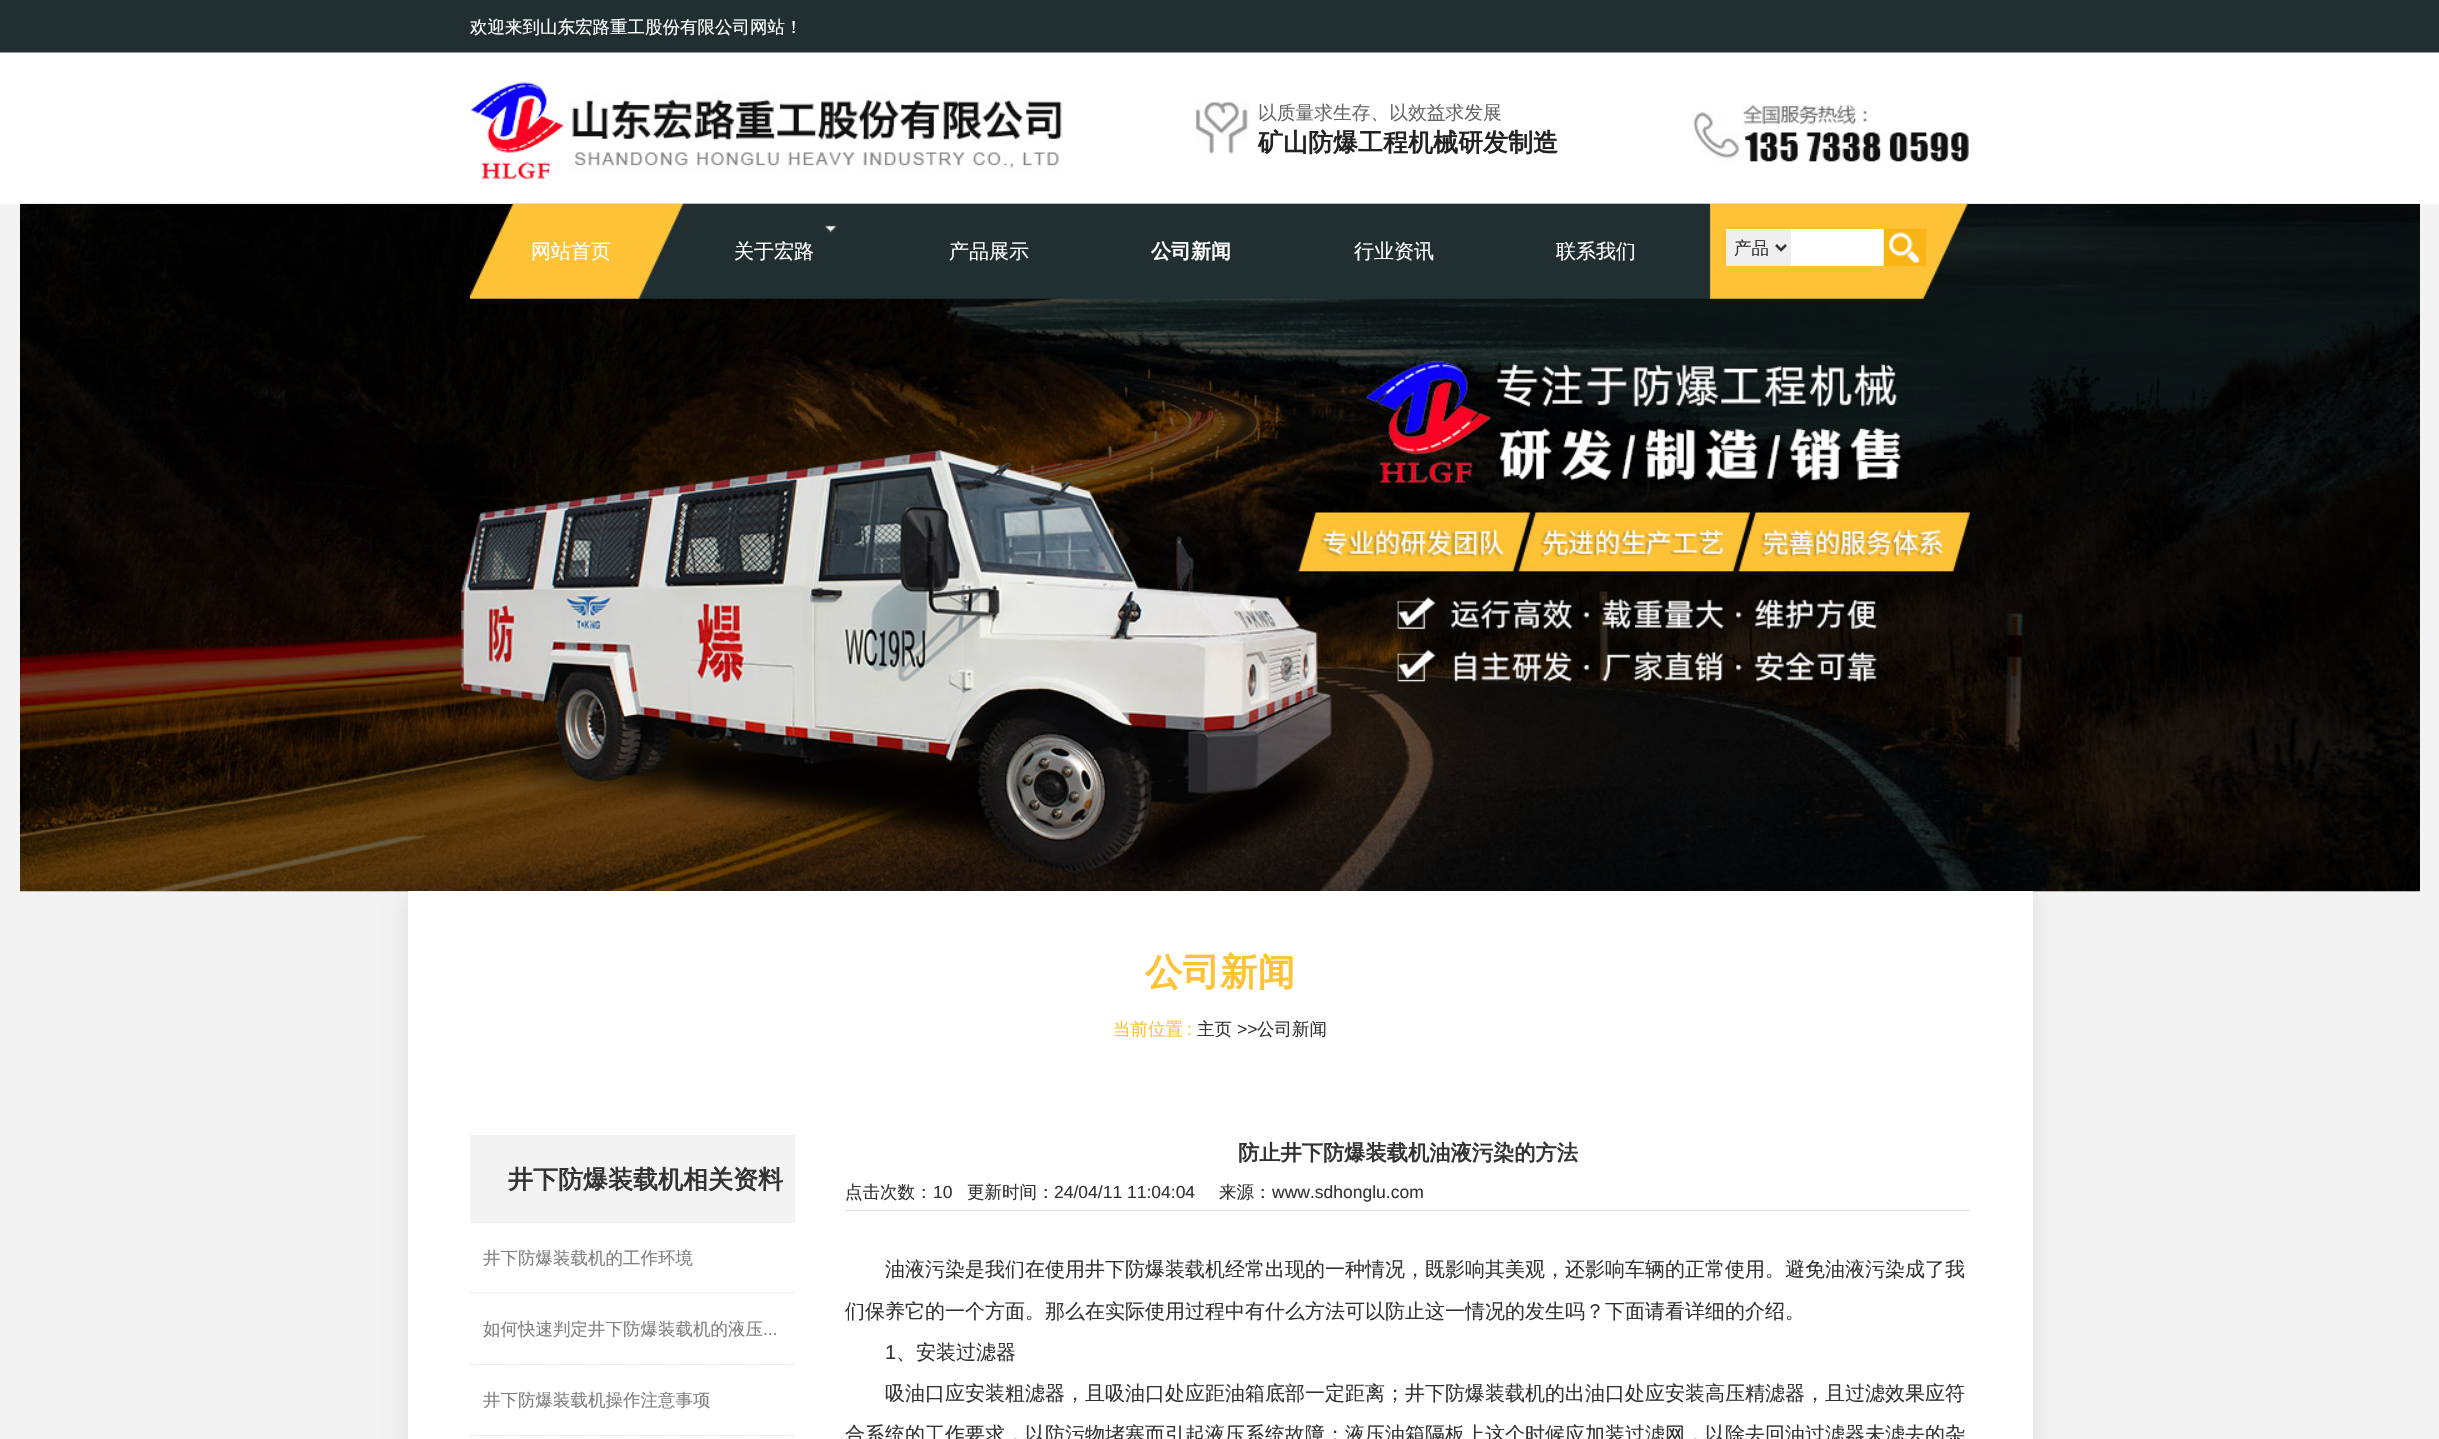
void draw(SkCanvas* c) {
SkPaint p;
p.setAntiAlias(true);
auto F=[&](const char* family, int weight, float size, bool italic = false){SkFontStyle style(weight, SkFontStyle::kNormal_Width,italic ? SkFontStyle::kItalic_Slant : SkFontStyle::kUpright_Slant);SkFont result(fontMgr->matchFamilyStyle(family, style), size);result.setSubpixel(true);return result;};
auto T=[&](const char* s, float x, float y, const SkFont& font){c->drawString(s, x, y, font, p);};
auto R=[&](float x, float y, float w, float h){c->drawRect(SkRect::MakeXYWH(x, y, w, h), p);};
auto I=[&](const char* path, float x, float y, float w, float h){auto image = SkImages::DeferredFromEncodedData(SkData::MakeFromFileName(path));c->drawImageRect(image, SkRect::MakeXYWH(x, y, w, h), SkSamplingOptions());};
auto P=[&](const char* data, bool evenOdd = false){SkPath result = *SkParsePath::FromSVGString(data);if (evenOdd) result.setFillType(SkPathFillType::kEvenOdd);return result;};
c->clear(0xfff3f3f3);
I("8.png",20,203,2400,689);
I("1.png",0,0,2439,204);
auto f1 = F("WenQuanYi Zen Hei",500,17.5);
p.setColor(0xffffffff);
T("欢迎来到山东宏路重工股份有限公司网站！",470,33,f1);
I("2.png",470,81,592,101);
I("3.png",1196,101,54,54);
auto f2 = F("WenQuanYi Zen Hei",500,18.75);
p.setColor(0xff666666);
T("以质量求生存、以效益求发展",1258,119,f2);
auto f3 = F("WenQuanYi Zen Hei",700,25);
p.setColor(0xff222222);
T("矿山防爆工程机械研发制造",1258,151,f3);
I("4.png",1693,104,276,58);
I("5.png",470,203,1498,96);
auto f4 = F("WenQuanYi Zen Hei",500,20);
p.setColor(0xffffffff);
T("网站首页",531,258,f4);
I("6.png",825,225,12,8);
T("关于宏路",734,258,f4);
T("产品展示",949,258,f4);
auto f5 = F("WenQuanYi Zen Hei",700,20);
T("公司新闻",1151,258,f5);
T("行业资讯",1354,258,f4);
T("联系我们",1556,258,f4);
p.setColor(0xffefefef);
R(1726,229,65,37);
p.setStroke(true);
p.setStrokeWidth(2.5);
p.setColor(0xff333333);
c->drawPath(P("M1776 245l5 5l5-5"),p);
p.setStroke(false);
T("产品",1734,254,f1);
p.setColor(0xffffffff);
R(1791,229,93,37);
I("7.png",1883,228,44,39);
p.setColor(0x1a000000);
p.setMaskFilter(SkMaskFilter::MakeBlur(kNormal_SkBlurStyle, 9.5));
c->drawRect(SkRect::MakeXYWH(408,898,1625,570),p);
p.setMaskFilter(nullptr);
p.setColor(0xffffffff);
R(408,891,1625,548);
auto f6 = F("WenQuanYi Zen Hei",700,37.5);
p.setColor(0xfffdc236);
T("公司新闻",1145,985,f6);
T("当前位置",1113,1035,f1);
auto f7 = F("Liberation Sans",400,17.5);
T(":",1187,1035,f7);
p.setColor(0xff333333);
T("主页",1197,1035,f1);
T(">>",1237,1035,f7);
T("公司新闻",1257,1035,f1);
p.setColor(0xfff3f3f3);
R(470,1135,325,88);
p.setColor(0xff333333);
T("井下防爆装载机相关资料",508,1188,f3);
p.setStroke(true);
p.setStrokeWidth(1.2);
p.setColor(0xffdddddd);
p.setPathEffect(SkDashPathEffect::Make({{1.25f,1.25f}}, 0));
c->drawPath(P("M470 1293h325"),p);
p.setPathEffect(nullptr);
p.setStroke(false);
p.setColor(0xff808080);
T("井下防爆装载机的工作环境",483,1264,f1);
p.setStroke(true);
p.setColor(0xffdddddd);
p.setPathEffect(SkDashPathEffect::Make({{1.25f,1.25f}}, 0));
c->drawPath(P("M470 1364.5h325"),p);
p.setPathEffect(nullptr);
p.setStroke(false);
p.setColor(0xff808080);
T("如何快速判定井下防爆装载机的液压",483,1335,f1);
T("...",763,1335,f7);
p.setStroke(true);
p.setColor(0xffdddddd);
p.setPathEffect(SkDashPathEffect::Make({{1.25f,1.25f}}, 0));
c->drawPath(P("M470 1435.5h325"),p);
p.setPathEffect(nullptr);
p.setStroke(false);
p.setColor(0xff808080);
T("井下防爆装载机操作注意事项",483,1406,f1);
auto f8 = F("WenQuanYi Zen Hei",700,21.25);
p.setColor(0xff333333);
T("防止井下防爆装载机油液污染的方法",1238,1160,f8);
p.setColor(0xffdddddd);
R(845,1210,1125,1);
p.setColor(0xff333333);
T("点击次数：",845,1198,f1);
T("10",933,1198,f7);
T("更新时间：",967,1198,f1);
T("24/04/11 11:04:04",1054,1198,f7);
T("来源：",1219,1198,f1);
T("www.sdhonglu.com",1272,1198,f7);
T("油液污染是我们在使用井下防爆装载机经常出现的一种情况，既影响其美观，还影响车辆的正常使用。避免油液污染成了我",885,1276,f4);
T("们保养它的一个方面。那么在实际使用过程中有什么方法可以防止这一情况的发生吗？下面请看详细的介绍。",845,1318,f4);
auto f9 = F("Liberation Sans",400,20);
T("1",885,1359,f9);
T("、安装过滤器",896,1359,f4);
T("吸油口应安装粗滤器，且吸油口处应距油箱底部一定距离；井下防爆装载机的出油口处应安装高压精滤器，且过滤效果应符",885,1400,f4);
T("合系统的工作要求，以防污物堵塞而引起液压系统故障；液压油箱隔板上这个时候应加装过滤网，以除去回油过滤器未滤去的杂",845,1441,f4);
}
